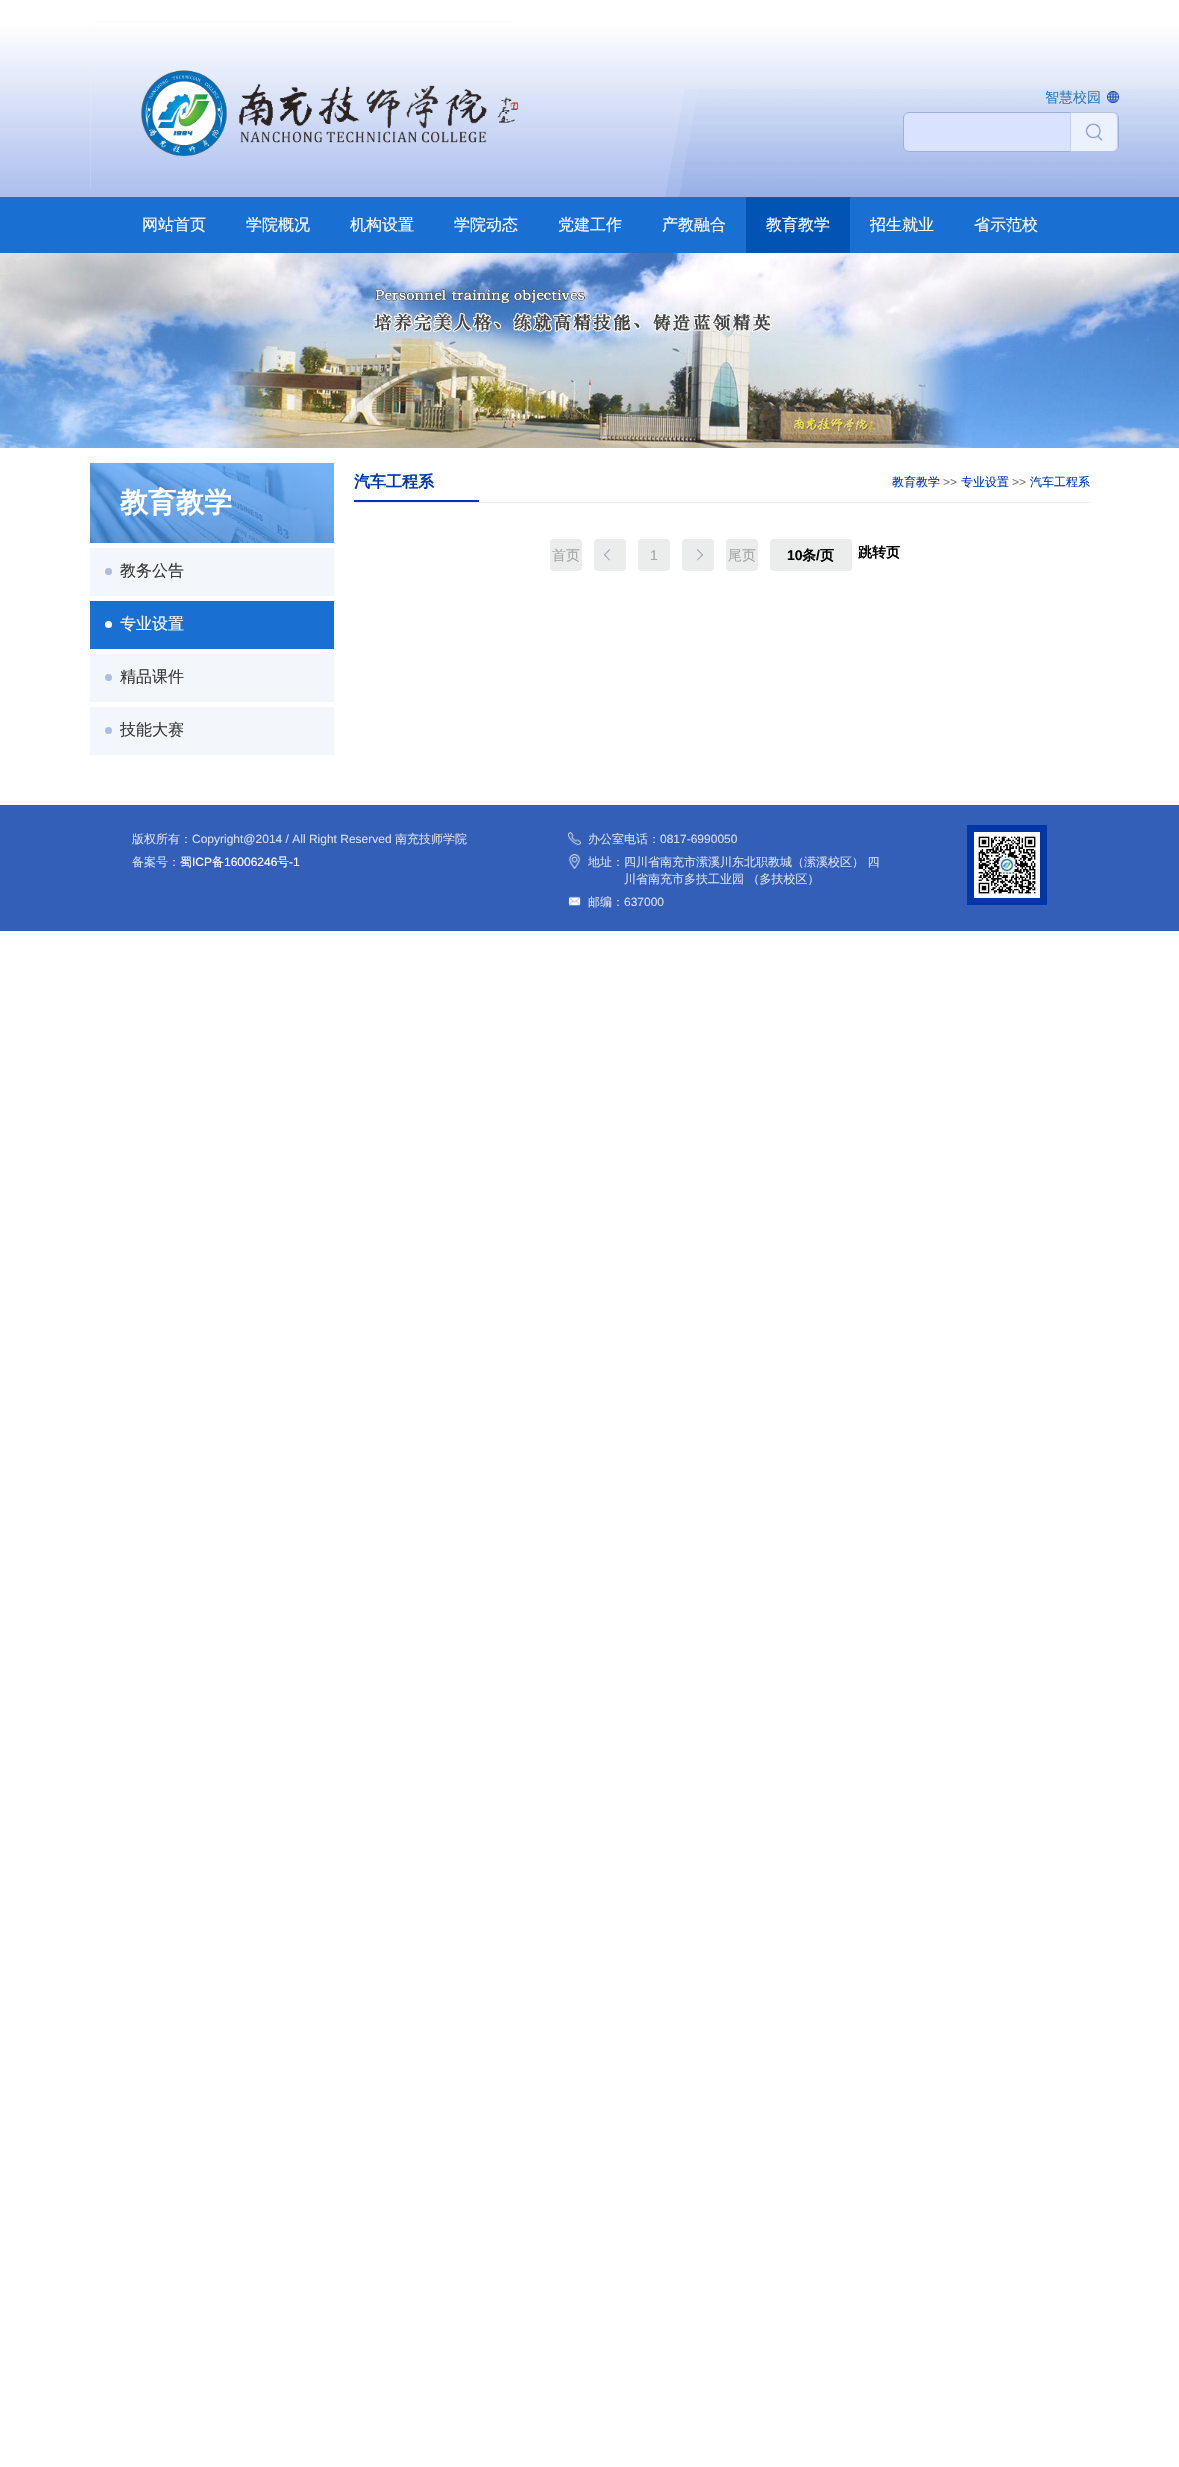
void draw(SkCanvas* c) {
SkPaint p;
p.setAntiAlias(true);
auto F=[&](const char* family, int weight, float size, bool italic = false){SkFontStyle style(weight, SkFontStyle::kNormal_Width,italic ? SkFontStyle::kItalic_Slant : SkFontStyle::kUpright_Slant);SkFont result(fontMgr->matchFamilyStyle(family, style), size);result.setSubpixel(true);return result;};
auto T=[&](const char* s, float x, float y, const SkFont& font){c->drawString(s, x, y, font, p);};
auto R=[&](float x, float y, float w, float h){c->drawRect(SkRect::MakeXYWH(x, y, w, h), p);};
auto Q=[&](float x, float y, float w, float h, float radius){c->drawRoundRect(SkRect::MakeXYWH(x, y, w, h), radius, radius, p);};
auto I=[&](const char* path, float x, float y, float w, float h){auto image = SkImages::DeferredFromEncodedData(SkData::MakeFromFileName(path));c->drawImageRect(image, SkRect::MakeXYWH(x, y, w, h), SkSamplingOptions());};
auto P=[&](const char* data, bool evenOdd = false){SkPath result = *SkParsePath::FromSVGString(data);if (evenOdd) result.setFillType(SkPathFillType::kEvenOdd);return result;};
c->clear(0xffffffff);
{
const SkColor colors[] = {0xffffffff,0xffabbeee};
const float stops[] = {0,1};
const SkPoint ends[] = {{590,21}, {590,197}};
p.setShader(SkGradientShader::MakeLinear(ends, colors, stops, 2, SkTileMode::kClamp));
p.setAlpha(255);
}
R(0,26,1179,171);
I("1.png",90,21,429,168);
I("2.png",665,89,514,108);
auto f1 = F("WenQuanYi Zen Hei",500,14);
p.setShader(nullptr);
p.setColor(0xff337ab7);
T("智慧校园",1045,102,f1);
I("3.png",1107,91,12,12);
p.setColor(0xffd9e3ff);
c->drawRoundRect(SkRect::MakeXYWH(903.5,112.5,215,39),5.5,5.5,p);
p.setStroke(true);
p.setStrokeWidth(1);
p.setColor(0xff9cafde);
c->drawRoundRect(SkRect::MakeXYWH(903.5,112.5,215,39),5.5,5.5,p);
p.setStroke(false);
p.setColor(0x80ffffff);
c->drawPath(P("M1070 112h42c3.5 0 6 2.5 6 6v28c0 3.5-2.5 6-6 6h-42z"),p);
p.setStroke(true);
p.setColor(0x809cafde);
c->drawPath(P("M1070.5 112.5h41.5c3 0 5.5 2.5 5.5 5.5v28c0 3-2.5 5.5-5.5 5.5h-41.5z"),p);
I("4.png",1085,123,18,18);
p.setStroke(false);
p.setColor(0xff1a70d2);
R(0,197,1179,56);
auto f2 = F("WenQuanYi Zen Hei",500,16);
p.setColor(0xffffffff);
T("网站首页",142,230,f2);
T("学院概况",246,230,f2);
T("机构设置",350,230,f2);
T("学院动态",454,230,f2);
T("党建工作",558,230,f2);
T("产教融合",662,230,f2);
p.setColor(0xff0154b3);
R(746,197,104,56);
p.setColor(0xffffffff);
T("教育教学",766,230,f2);
T("招生就业",870,230,f2);
T("省示范校",974,230,f2);
I("5.png",0,253,1179,195);
I("6.png",90,463,244,80);
auto f3 = F("WenQuanYi Zen Hei",700,28);
T("教育教学",120,512,f3);
p.setColor(0xfff3f6fb);
R(90,548,244,48);
p.setColor(0xffaabde2);
c->drawCircle(108.5,571.5,3.5,p);
p.setColor(0xff373737);
T("教务公告",120,576,f2);
p.setColor(0xff1a70d2);
R(90,601,244,48);
p.setColor(0xffffffff);
c->drawCircle(108.5,624.5,3.5,p);
T("专业设置",120,629,f2);
p.setColor(0xfff3f6fb);
R(90,654,244,48);
p.setColor(0xffaabde2);
c->drawCircle(108.5,677.5,3.5,p);
p.setColor(0xff373737);
T("精品课件",120,682,f2);
p.setColor(0xfff3f6fb);
R(90,707,244,48);
p.setColor(0xffaabde2);
c->drawCircle(108.5,730.5,3.5,p);
p.setColor(0xff373737);
T("技能大赛",120,735,f2);
p.setColor(0xffe6edf8);
R(354,502,736,1);
p.setColor(0xff0037a8);
R(354,500,125,2);
auto f4 = F("WenQuanYi Zen Hei",700,16);
T("汽车工程系",354,487,f4);
auto f5 = F("WenQuanYi Zen Hei",500,12);
T("教育教学",892,486,f5);
auto f6 = F("Liberation Sans",400,12);
p.setColor(0xff737373);
T(">>",943,486,f6);
p.setColor(0xff0037a8);
T("专业设置",961,486,f5);
p.setColor(0xff737373);
T(">>",1012,486,f6);
p.setColor(0xff0037a8);
T("汽车工程系",1030,486,f5);
p.setColor(0xffebecec);
Q(550,539,32,32,4);
p.setColor(0xffa5a5a5);
T("首页",552,560,f1);
p.setColor(0xffebecec);
Q(594,539,32,32,4);
p.setColor(0xff929db3);
c->drawPath(P("M604 555l5.5-6l.5 1l-5.5 5.5z"),p);
c->drawPath(P("M604 555l.5-1l5.5 6l-.5 .5z"),p);
p.setColor(0xffebecec);
Q(638,539,32,32,4);
auto f7 = F("Liberation Sans",400,14);
p.setColor(0xffa5a5a5);
T("1",650,560,f7);
p.setColor(0xffebecec);
Q(682,539,32,32,4);
p.setColor(0xff929db3);
c->drawPath(P("M697.5 549l5.5 6l-.5 .5l-5.5-5.5z"),p);
c->drawPath(P("M702.5 554l.5 1l-5.5 5.5l-.5-.5z"),p);
p.setColor(0xffebecec);
Q(726,539,32,32,4);
p.setColor(0xffa5a5a5);
T("尾页",728,560,f1);
p.setColor(0xffebecec);
Q(770,539,82,32,4);
auto f8 = F("Liberation Sans",700,14);
p.setColor(0xff000000);
T("10",787,560,f8);
auto f9 = F("WenQuanYi Zen Hei",700,14);
T("条",802,560,f9);
T("/",816,560,f8);
T("页",820,560,f9);
T("跳转页",858,557,f9);
p.setColor(0xff335fb9);
R(0,805,1179,126);
p.setColor(0xffd6dff1);
T("版权所有：",132,843,f5);
T("Copyright@2014 / All Right Reserved",192,843,f6);
T("南充技师学院",395,843,f5);
T("备案号：",132,866,f5);
p.setColor(0xffffffff);
T("蜀",180,866,f5);
T("ICP",192,866,f6);
T("备",212,866,f5);
T("16006246",224,866,f6);
T("号",277,866,f5);
T("-1",289,866,f6);
I("7.png",568,832,14,14);
p.setColor(0xffd6dff1);
T("办公室电话：",588,843,f5);
T("0817-6990050",660,843,f6);
I("8.png",568,854,13,15);
T("地址：",588,866,f5);
T("四川省南充市潆溪川东北职教城（潆溪校区） 四",624,866,f5);
T("川省南充市多扶工业园 （多扶校区）",624,883,f5);
I("9.png",568,896,13,10);
T("邮编：",588,906,f5);
T("637000",624,906,f6);
p.setColor(0xff0037a8);
R(967,825,80,80);
I("10.png",974,832,66,66);
}
